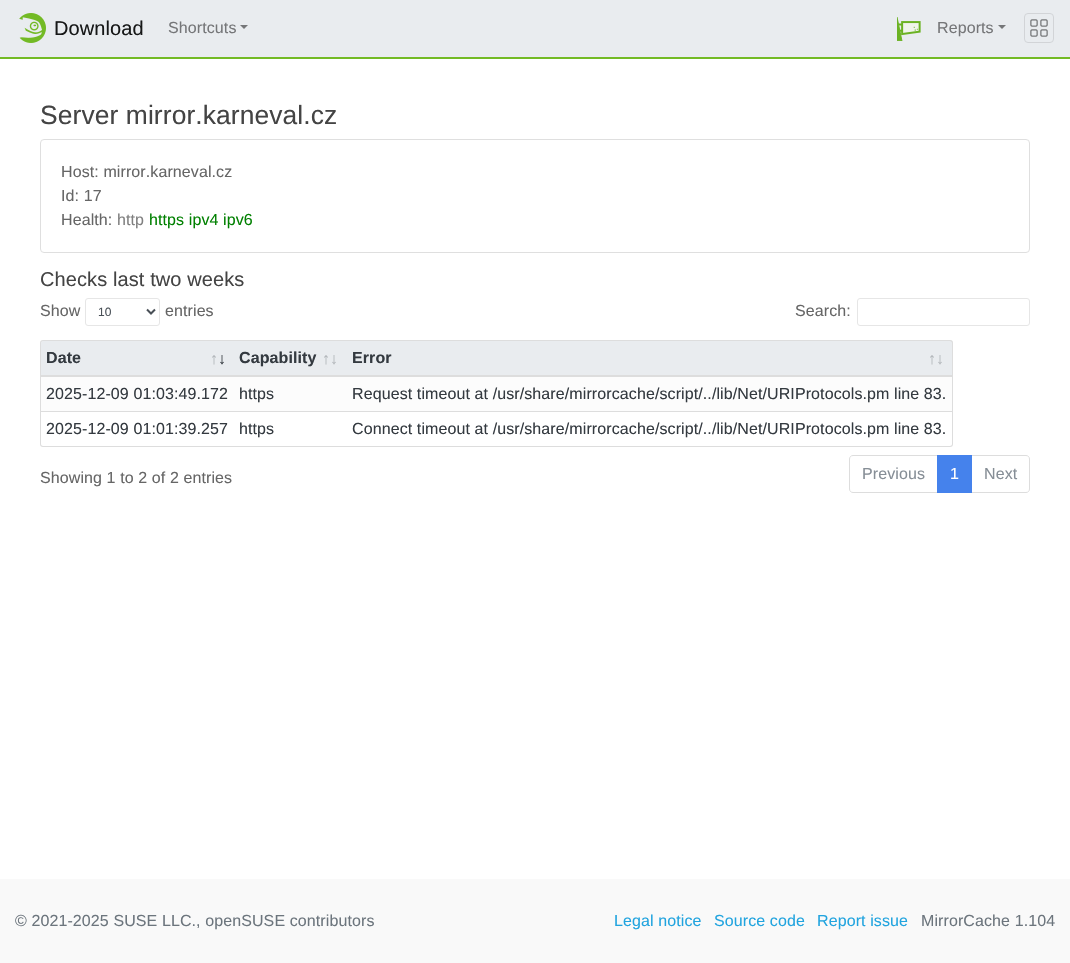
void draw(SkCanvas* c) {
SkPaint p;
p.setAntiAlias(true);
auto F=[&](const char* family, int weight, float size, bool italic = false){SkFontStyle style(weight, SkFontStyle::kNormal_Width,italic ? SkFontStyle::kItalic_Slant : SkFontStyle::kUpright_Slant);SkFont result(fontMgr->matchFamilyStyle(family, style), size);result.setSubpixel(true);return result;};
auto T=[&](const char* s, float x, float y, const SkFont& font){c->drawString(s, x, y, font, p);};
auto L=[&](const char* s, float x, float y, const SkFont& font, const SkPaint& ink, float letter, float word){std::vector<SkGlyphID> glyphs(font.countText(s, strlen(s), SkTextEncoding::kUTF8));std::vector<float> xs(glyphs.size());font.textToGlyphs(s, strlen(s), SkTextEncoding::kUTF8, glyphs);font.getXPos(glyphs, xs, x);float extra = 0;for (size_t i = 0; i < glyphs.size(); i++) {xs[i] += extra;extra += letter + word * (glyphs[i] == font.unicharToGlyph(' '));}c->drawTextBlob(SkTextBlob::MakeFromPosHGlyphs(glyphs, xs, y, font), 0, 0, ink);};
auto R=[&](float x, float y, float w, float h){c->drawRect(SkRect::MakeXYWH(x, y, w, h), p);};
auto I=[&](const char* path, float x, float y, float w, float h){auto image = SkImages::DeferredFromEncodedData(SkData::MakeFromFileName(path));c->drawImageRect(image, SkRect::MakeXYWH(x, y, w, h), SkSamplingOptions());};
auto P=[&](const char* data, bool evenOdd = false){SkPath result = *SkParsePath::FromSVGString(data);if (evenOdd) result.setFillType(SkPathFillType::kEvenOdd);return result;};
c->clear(0xffffffff);
p.setColor(0xffe9ecef);
R(0,0,1070,57);
p.setColor(0xff73ba25);
R(0,57,1070,2);
I("1.png",19,13,27,30);
auto f1 = F("Liberation Sans",400,20);
p.setColor(0xff171818);
L("Download",54,35,f1,p,.1,0);
auto f2 = F("Liberation Sans",400,16);
p.setColor(0xff757678);
L("Shortcuts",168,33,f2,p,.1,0);
c->drawPath(P("M240 25h8l-4 4z"),p);
I("2.png",897,17,24,24);
L("Reports",937,33,f2,p,.1,0);
c->drawPath(P("M998 25h8l-4 4z"),p);
p.setStroke(true);
p.setStrokeWidth(1);
p.setColor(0xffd2d4d7);
c->drawRoundRect(SkRect::MakeXYWH(1024.5,13.5,29,29),3.5,3.5,p);
I("3.png",1030,19,18,18);
auto f3 = F("Liberation Sans",400,26.4);
p.setStroke(false);
p.setColor(0xff444444);
L("Server mirror.karneval.cz",40,124,f3,p,.1,0);
p.setStroke(true);
p.setColor(0xffdfdfdf);
c->drawRoundRect(SkRect::MakeXYWH(40.5,139.5,989,113),3.5,3.5,p);
p.setStroke(false);
p.setColor(0xff666666);
L("Host: mirror.karneval.cz",61,177,f2,p,.1,0);
L("Id: 17",61,201,f2,p,.1,0);
L("Health:",61,225,f2,p,.1,0);
p.setColor(0xff808080);
L("http",117,225,f2,p,.1,0);
p.setColor(0xff008000);
L("https ipv4 ipv6",149,225,f2,p,.1,0);
p.setColor(0xff444444);
L("Checks last two weeks",40,286,f1,p,.1,0);
p.setColor(0xff666666);
L("Show",40,316,f2,p,.1,0);
p.setStroke(true);
p.setColor(0xffe6e6e6);
c->drawRoundRect(SkRect::MakeXYWH(85.5,298.5,74,27),2.5,2.5,p);
p.setStrokeWidth(2);
p.setColor(0xff495057);
c->drawPath(P("M147 309.5l4 4l4-4"),p);
auto f4 = F("Liberation Sans",400,12);
p.setStroke(false);
T("10",98,316,f4);
p.setColor(0xff666666);
L("entries",165,316,f2,p,.1,0);
L("Search:",795,316,f2,p,.1,0);
p.setStroke(true);
p.setStrokeWidth(1);
p.setColor(0xffe6e6e6);
c->drawRoundRect(SkRect::MakeXYWH(857.5,298.5,172,27),2.5,2.5,p);
p.setStroke(false);
p.setColor(0xffe9ecef);
c->drawPath(P("M43 341h191v34h-193v-32c0-1 1-2 2-2z"),p);
p.setColor(0xffdddddd);
c->drawPath(P("M43 340h191v36h-194v-33c0-2 1-3 3-3zm0 1h191v34h-193v-32c0-1 1-2 2-2z",true),p);
auto f5 = F("Liberation Sans",700,16);
p.setColor(0xff343a40);
L("Date",46,363,f5,p,.1,0);
p.setColor(0xffb3b7bb);
L("↑",210,364,f5,p,.1,0);
p.setColor(0xff343a40);
L("↓",218,364,f5,p,.1,0);
p.setColor(0xffe9ecef);
R(234,341,113,34);
p.setColor(0xffdddddd);
R(234,340,113,1);
R(234,375,113,1);
p.setColor(0xff343a40);
L("Capability",239,363,f5,p,.1,0);
p.setColor(0xffb3b7bb);
L("↑↓",322,364,f5,p,.1,0);
p.setColor(0xffe9ecef);
c->drawPath(P("M347 340h603c1.5 0 3 1.5 3 3v33h-606z"),p);
p.setColor(0xffdddddd);
c->drawPath(P("M347 340h603c2 0 3 1 3 3v33h-606zm0 1h603c1 0 2 1 2 2v32h-605z",true),p);
p.setColor(0xff343a40);
L("Error",352,363,f5,p,.1,0);
p.setColor(0xffb3b7bb);
L("↑↓",928,364,f5,p,.1,0);
p.setColor(0xfffcfcfc);
R(41,377,911,34);
p.setColor(0xffdddddd);
R(40,376,913,1);
R(40,376,1,35);
p.setColor(0xff343a40);
L("2025-12-09 01:03:49.172",46,399,f2,p,.1,0);
L("https",239,399,f2,p,.1,0);
p.setColor(0xffdddddd);
R(952,376,1,35);
p.setColor(0xff343a40);
L("Request timeout at /usr/share/mirrorcache/script/../lib/Net/URIProtocols.pm line 83.",352,399,f2,p,.1,0);
p.setColor(0xffdddddd);
c->drawPath(P("M40 411h194v36h-191c-2 0-3-1-3-3zm1 1h193v34h-191c-1 0-2-1-2-2z",true),p);
p.setColor(0xff343a40);
L("2025-12-09 01:01:39.257",46,434,f2,p,.1,0);
p.setColor(0xffdddddd);
R(234,411,113,1);
R(234,446,113,1);
p.setColor(0xff343a40);
L("https",239,434,f2,p,.1,0);
p.setColor(0xffdddddd);
c->drawPath(P("M347 411h606v33c0 2-1 3-3 3h-603zm0 1h605v32c0 1-1 2-2 2h-603z",true),p);
p.setColor(0xff343a40);
L("Connect timeout at /usr/share/mirrorcache/script/../lib/Net/URIProtocols.pm line 83.",352,434,f2,p,.1,0);
p.setColor(0xff666666);
L("Showing 1 to 2 of 2 entries",40,483,f2,p,.1,0);
p.setStroke(true);
p.setColor(0xffdddddd);
c->drawPath(P("M853 455.5h84.5v37h-84.5c-2 0-3.5-1.5-3.5-3.5v-30c0-2 1.5-3.5 3.5-3.5z"),p);
p.setStroke(false);
p.setColor(0xff868e96);
L("Previous",862,479,f2,p,.1,0);
p.setStroke(true);
p.setColor(0xffdddddd);
c->drawPath(P("M971.5 455.5h54.5c2 0 3.5 1.5 3.5 3.5v30c0 2-1.5 3.5-3.5 3.5h-54.5z"),p);
p.setStroke(false);
p.setColor(0xff4582ec);
R(937,455,35,38);
p.setColor(0xffffffff);
L("1",950,479,f2,p,.1,0);
p.setColor(0xff868e96);
L("Next",984,479,f2,p,.1,0);
p.setColor(0xfff9f9f9);
R(0,879,1070,84);
p.setColor(0xff6c757d);
L("© 2021-2025 SUSE LLC., openSUSE contributors",15,926,f2,p,.1,0);
p.setColor(0xff21a4df);
L("Legal notice",614,926,f2,p,.1,0);
L("Source code",714,926,f2,p,.1,0);
L("Report issue",817,926,f2,p,.1,0);
p.setColor(0xff6c757d);
L("MirrorCache 1.104",921,926,f2,p,.1,0);
}
